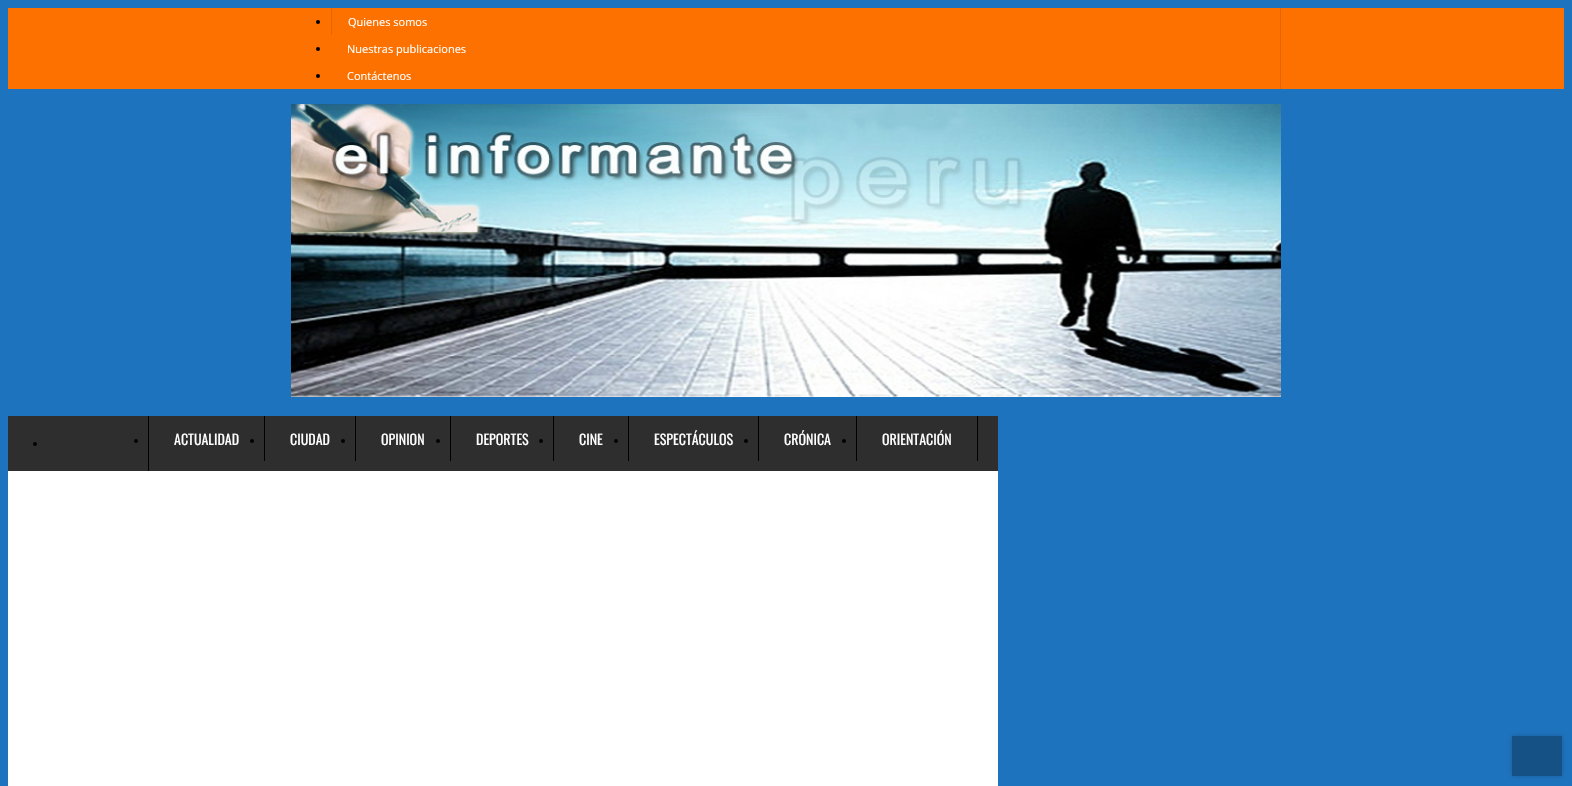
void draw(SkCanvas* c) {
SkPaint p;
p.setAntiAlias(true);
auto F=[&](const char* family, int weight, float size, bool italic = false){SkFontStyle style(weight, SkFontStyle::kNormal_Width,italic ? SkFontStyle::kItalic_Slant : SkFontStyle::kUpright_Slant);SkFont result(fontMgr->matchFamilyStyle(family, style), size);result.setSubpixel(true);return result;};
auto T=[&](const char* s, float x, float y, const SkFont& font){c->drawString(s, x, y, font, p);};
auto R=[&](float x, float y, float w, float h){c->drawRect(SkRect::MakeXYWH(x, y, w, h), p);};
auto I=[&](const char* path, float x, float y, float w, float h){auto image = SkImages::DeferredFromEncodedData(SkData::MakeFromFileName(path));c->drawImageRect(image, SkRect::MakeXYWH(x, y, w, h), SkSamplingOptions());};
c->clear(0xff1e73be);
p.setColor(0xfffc7100);
R(8,8,1556,81);
p.setColor(0xff000000);
c->drawCircle(318,22,2,p);
p.setColor(0xffe36600);
R(1280,8,1,81);
R(331,8,1,27);
auto f1 = F("Open Sans",400,11);
p.setColor(0xffffffff);
T("Quienes somos",348,26,f1);
p.setColor(0xff000000);
c->drawCircle(318,49,2,p);
p.setColor(0xffffffff);
T("Nuestras publicaciones",347,53,f1);
p.setColor(0xff000000);
c->drawCircle(318,76,2,p);
p.setColor(0xffffffff);
T("Contáctenos",347,80,f1);
I("1.png",291,104,990,293);
R(8,471,990,315);
p.setColor(0xff2e2e2e);
R(8,416,990,55);
p.setColor(0xff000000);
c->drawCircle(35,444,2,p);
R(148,416,1,55);
c->drawCircle(136,441,2,p);
R(264,416,1,45);
auto f2 = F("Oswald",400,14);
p.setColor(0xffffffff);
T("ACTUALIDAD",174,445,f2);
p.setColor(0xff000000);
c->drawCircle(252,441,2,p);
R(355,416,1,45);
p.setColor(0xffffffff);
T("CIUDAD",290,445,f2);
p.setColor(0xff000000);
c->drawCircle(343,441,2,p);
R(450,416,1,45);
p.setColor(0xffffffff);
T("OPINION",381,445,f2);
p.setColor(0xff000000);
c->drawCircle(438,441,2,p);
R(553,416,1,45);
p.setColor(0xffffffff);
T("DEPORTES",476,445,f2);
p.setColor(0xff000000);
c->drawCircle(541,441,2,p);
R(628,416,1,45);
p.setColor(0xffffffff);
T("CINE",579,445,f2);
p.setColor(0xff000000);
c->drawCircle(616,441,2,p);
R(758,416,1,45);
p.setColor(0xffffffff);
T("ESPECTÁCULOS",654,445,f2);
p.setColor(0xff000000);
c->drawCircle(746,441,2,p);
R(856,416,1,45);
p.setColor(0xffffffff);
T("CRÓNICA",784,445,f2);
p.setColor(0xff000000);
c->drawCircle(844,441,2,p);
R(977,416,1,45);
p.setColor(0xffffffff);
T("ORIENTACIÓN",882,445,f2);
p.setColor(0x33000000);
p.setMaskFilter(SkMaskFilter::MakeBlur(kNormal_SkBlurStyle, 2.5));
c->drawRect(SkRect::MakeXYWH(1512,736,50,40),p);
p.setMaskFilter(nullptr);
p.setColor(0xff155185);
R(1512,736,50,40);
}
